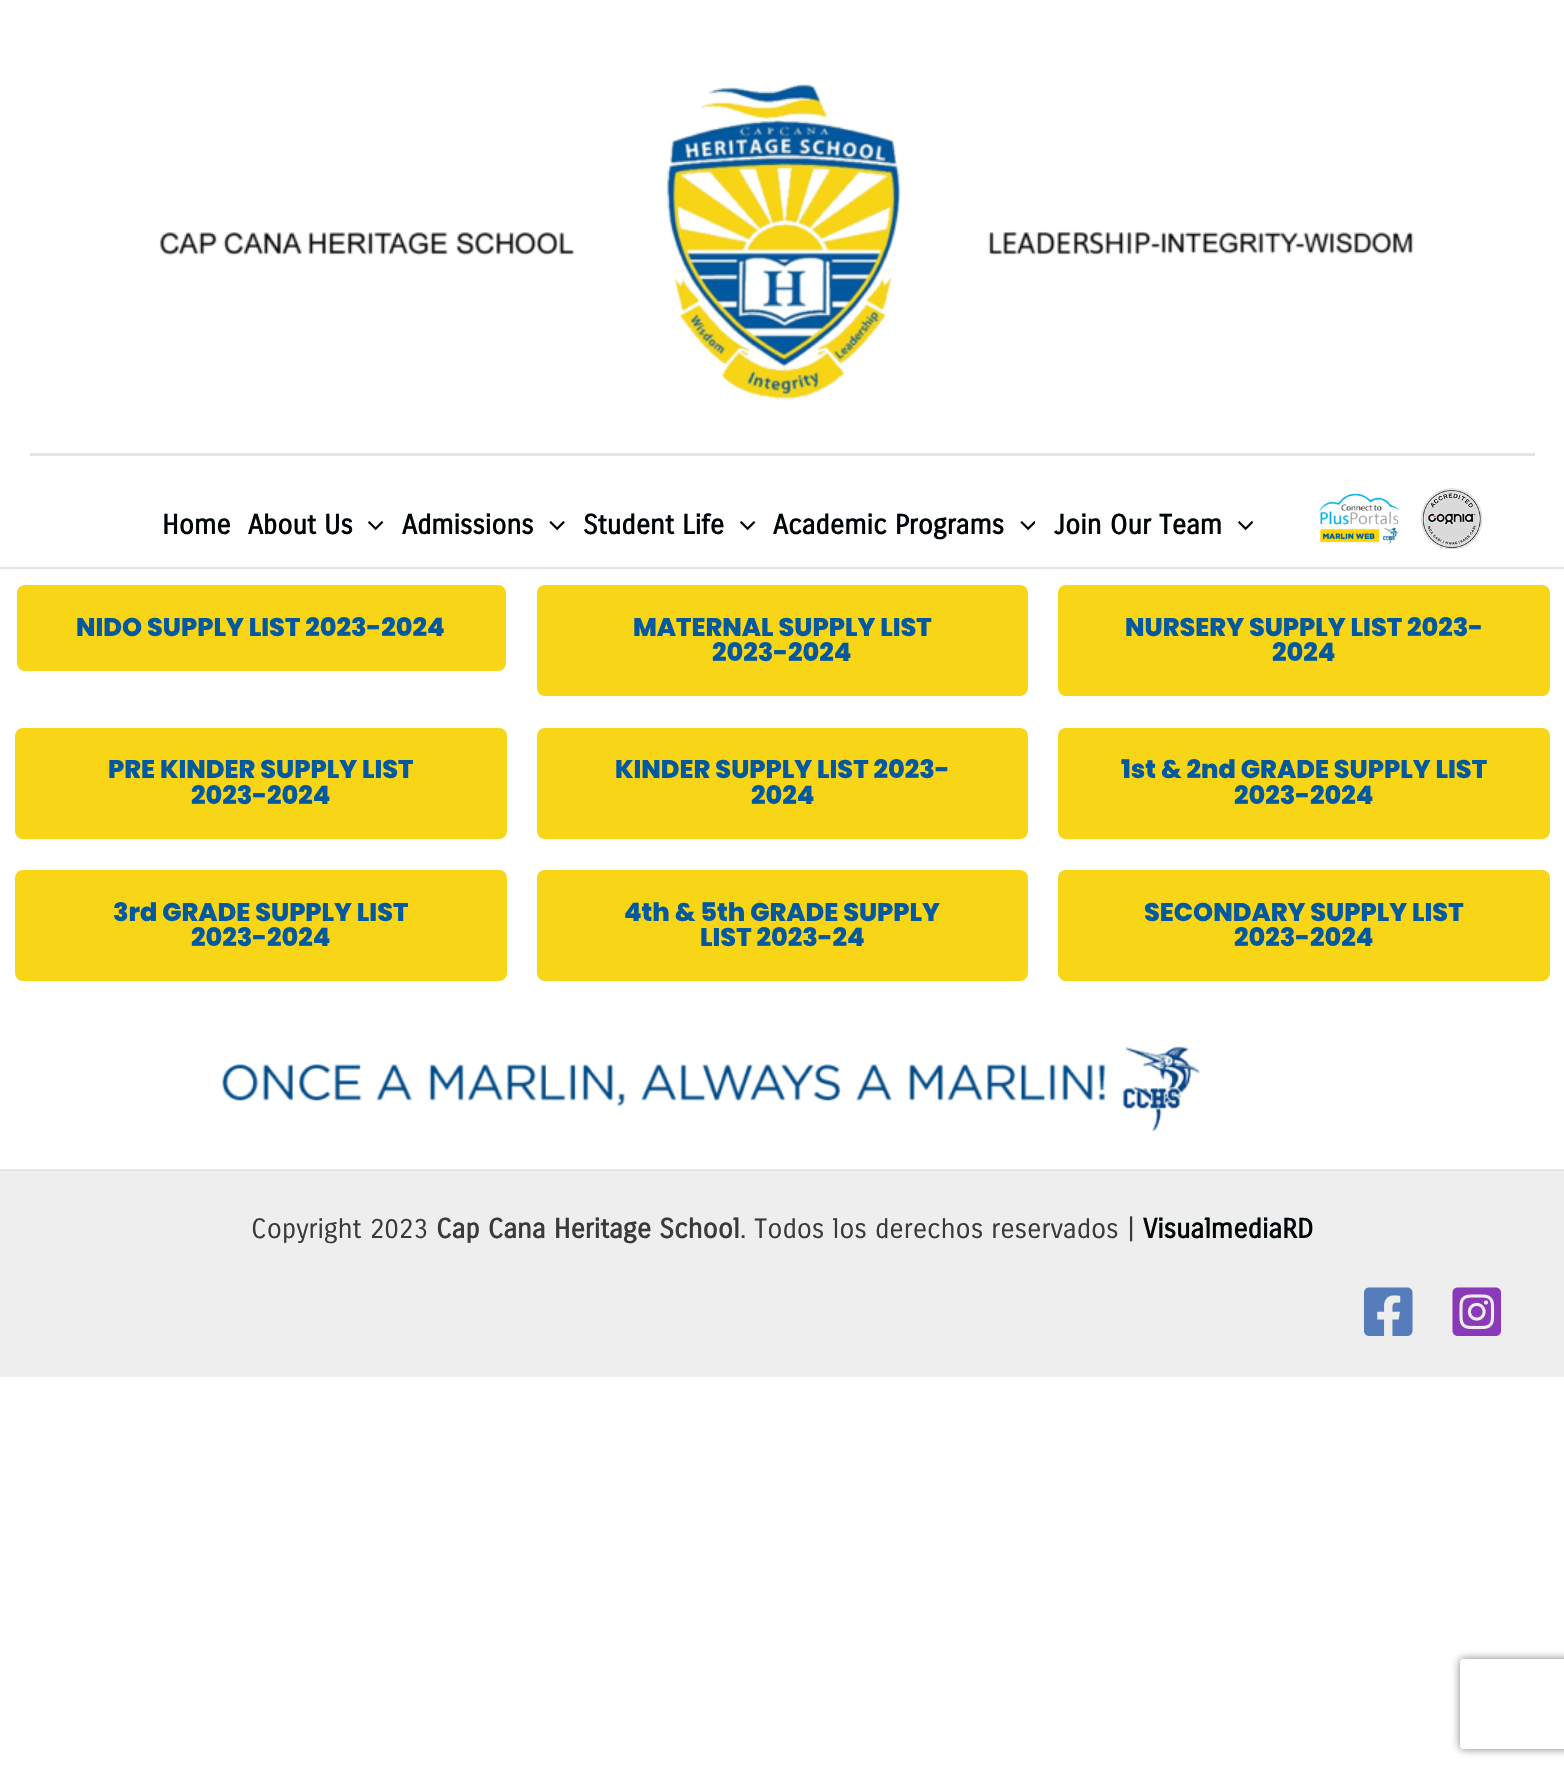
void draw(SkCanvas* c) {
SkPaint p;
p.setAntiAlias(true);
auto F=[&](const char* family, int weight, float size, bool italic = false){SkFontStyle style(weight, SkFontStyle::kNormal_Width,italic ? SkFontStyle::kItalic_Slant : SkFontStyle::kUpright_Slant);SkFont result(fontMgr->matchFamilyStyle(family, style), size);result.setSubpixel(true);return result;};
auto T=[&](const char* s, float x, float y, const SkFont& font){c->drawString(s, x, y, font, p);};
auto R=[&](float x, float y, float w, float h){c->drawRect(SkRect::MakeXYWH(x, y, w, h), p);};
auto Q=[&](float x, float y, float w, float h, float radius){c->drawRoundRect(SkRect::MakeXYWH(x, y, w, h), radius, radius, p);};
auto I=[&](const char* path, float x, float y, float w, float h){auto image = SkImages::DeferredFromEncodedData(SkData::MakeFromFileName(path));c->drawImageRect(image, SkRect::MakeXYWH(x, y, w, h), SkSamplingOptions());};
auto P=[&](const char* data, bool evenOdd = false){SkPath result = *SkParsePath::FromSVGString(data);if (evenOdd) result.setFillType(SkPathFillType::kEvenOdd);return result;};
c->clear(0xffffffff);
p.setColor(0xffe5e5e5);
R(30,453,1505,3);
I("1.png",159,232,416,24);
I("2.png",666,83,235,317);
I("3.png",988,231,426,24);
p.setColor(0xffe0e4e8);
R(0,567,1564,2);
auto f1 = F("Carrois Gothic",700,27);
p.setColor(0xff000508);
T("Home",162,534,f1);
T("About Us",248,534,f1);
I("4.png",368,521,16,10);
T("Admissions",402,534,f1);
I("5.png",549,521,16,10);
T("Student Life",583,534,f1);
I("4.png",740,521,16,10);
T("Academic Programs",773,534,f1);
I("6.png",1020,521,15,10);
T("Join Our Team",1054,534,f1);
I("7.png",1238,521,15,10);
I("8.png",1319,488,164,61);
p.setColor(0xfff8d516);
Q(17,585,489,86,8);
auto f2 = F("Poppins",800,25.5);
p.setColor(0xff0259a0);
T("NIDO SUPPLY LIST 2023-2024",76,636,f2);
p.setColor(0xfff8d516);
Q(537,585,491,111,8);
p.setColor(0xff0259a0);
T("MATERNAL SUPPLY LIST",633,636,f2);
T("2023-2024",712,661,f2);
p.setColor(0xfff8d516);
Q(1058,585,492,111,8);
p.setColor(0xff0259a0);
T("NURSERY SUPPLY LIST 2023-",1125,636,f2);
T("2024",1272,661,f2);
p.setColor(0xfff8d516);
Q(15,728,492,111,8);
p.setColor(0xff0259a0);
T("PRE KINDER SUPPLY LIST",108,778,f2);
T("2023-2024",191,804,f2);
p.setColor(0xfff8d516);
Q(537,728,491,111,8);
p.setColor(0xff0259a0);
T("KINDER SUPPLY LIST 2023-",615,778,f2);
T("2024",751,804,f2);
p.setColor(0xfff8d516);
Q(1058,728,492,111,8);
p.setColor(0xff0259a0);
T("1st & 2nd GRADE SUPPLY LIST",1121,778,f2);
T("2023-2024",1234,804,f2);
p.setColor(0xfff8d516);
Q(15,870,492,111,8);
p.setColor(0xff0259a0);
T("3rd GRADE SUPPLY LIST",113,921,f2);
T("2023-2024",191,946,f2);
p.setColor(0xfff8d516);
Q(537,870,491,111,8);
p.setColor(0xff0259a0);
T("4th & 5th GRADE SUPPLY",624,921,f2);
T("LIST 2023-24",700,946,f2);
p.setColor(0xfff8d516);
Q(1058,870,492,111,8);
p.setColor(0xff0259a0);
T("SECONDARY SUPPLY LIST",1144,921,f2);
T("2023-2024",1234,946,f2);
I("9.png",222,1046,978,86);
p.setColor(0xffeeeeee);
R(0,1171,1564,206);
p.setColor(0xffe5e5e5);
R(0,1169,1564,2);
auto f3 = F("Carrois Gothic",400,27);
p.setColor(0xff3a3a3a);
T("Copyright 2023",251,1238,f3);
T("Cap Cana Heritage School",436,1238,f1);
T(". Todos los derechos reservados |",740,1238,f3);
p.setColor(0xff000508);
T("VisualmediaRD",1143,1238,f1);
I("10.png",1363,1287,50,49);
I("11.png",1452,1287,50,49);
c->save();
c->clipPath(P("M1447 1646h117v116h-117zm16 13h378c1.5 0 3 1.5 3 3v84c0 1.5-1.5 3-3 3h-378c-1.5 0-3-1.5-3-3v-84c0-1.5 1.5-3 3-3z",true),true);
p.setColor(0xff808080);
p.setMaskFilter(SkMaskFilter::MakeBlur(kNormal_SkBlurStyle, 4));
c->drawRoundRect(SkRect::MakeXYWH(1460,1659,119,90),3,3,p);
p.setMaskFilter(nullptr);
c->restore();
}
